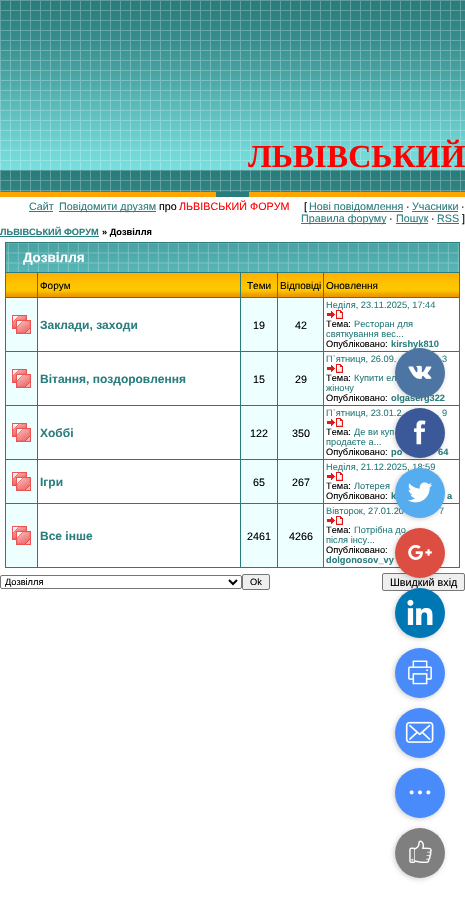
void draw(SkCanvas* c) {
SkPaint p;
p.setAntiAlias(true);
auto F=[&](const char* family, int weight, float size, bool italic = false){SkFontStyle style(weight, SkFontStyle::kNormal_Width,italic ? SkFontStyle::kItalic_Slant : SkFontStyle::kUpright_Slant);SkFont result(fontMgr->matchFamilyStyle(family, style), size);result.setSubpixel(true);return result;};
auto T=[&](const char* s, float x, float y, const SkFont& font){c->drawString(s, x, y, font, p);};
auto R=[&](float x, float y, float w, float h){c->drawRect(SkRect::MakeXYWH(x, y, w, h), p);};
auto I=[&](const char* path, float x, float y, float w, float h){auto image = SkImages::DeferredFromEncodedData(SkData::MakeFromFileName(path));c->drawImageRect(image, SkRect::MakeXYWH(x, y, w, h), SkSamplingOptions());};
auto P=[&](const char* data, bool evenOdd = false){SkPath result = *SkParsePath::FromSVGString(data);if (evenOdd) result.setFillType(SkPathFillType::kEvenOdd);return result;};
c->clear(0xffffffff);
I("1.png",0,0,465,192);
auto f1 = F("Liberation Serif",700,32);
p.setColor(0xffff0000);
T("ЛЬВІВСЬКИЙ",248,167,f1);
p.setColor(0xffffa500);
R(0,192,216,5);
p.setColor(0xff2a7c7c);
R(216,192,33,5);
p.setColor(0xffffa500);
R(249,192,216,5);
auto f2 = F("Liberation Sans",400,10.75);
p.setColor(0xff2b7e7e);
T("Сайт",29,210,f2);
R(29,211,24,1);
R(59,211,97,1);
T("Повідомити друзям",59,210,f2);
p.setColor(0xff000000);
T("про",159,210,f2);
p.setColor(0xffff0000);
T("ЛЬВІВСЬКИЙ ФОРУМ",179,210,f2);
p.setColor(0xff000000);
T("[",304,210,f2);
p.setColor(0xff2b7e7e);
R(309,211,94,1);
T("Нові повідомлення",309,210,f2);
p.setColor(0xff000000);
T("·",406,210,f2);
p.setColor(0xff2b7e7e);
T("Учасники",412,210,f2);
R(412,211,46,1);
p.setColor(0xff000000);
T("·",461,210,f2);
p.setColor(0xff2b7e7e);
R(301,223,85,1);
T("Правила форуму",301,222,f2);
p.setColor(0xff000000);
T("·",389,222,f2);
p.setColor(0xff2b7e7e);
R(396,223,32,1);
T("Пошук",396,222,f2);
p.setColor(0xff000000);
T("·",431,222,f2);
p.setColor(0xff2b7e7e);
T("RSS",437,222,f2);
R(437,223,22,1);
p.setColor(0xff000000);
T("]",462,222,f2);
auto f3 = F("Liberation Sans",700,9.25);
p.setColor(0xff2b7e7e);
T("ЛЬВІВСЬКИЙ ФОРУМ",0,235,f3);
R(0,236,99,1);
p.setColor(0xff000000);
T("» Дозвілля",102,235,f3);
p.setColor(0xff2a7c7c);
R(5,242,455,326);
I("2.png",6,243,453,29);
auto f4 = F("Liberation Sans",700,13.5);
p.setColor(0xffffffff);
T("Дозвілля",23,262,f4);
I("3.png",6,273,31,24);
I("4.png",38,273,202,24);
auto f5 = F("Liberation Sans",400,10);
p.setColor(0xff000000);
T("Форум",40,289,f5);
I("5.png",241,273,36,24);
T("Теми",247,289,f5);
I("6.png",278,273,45,24);
T("Відповіді",280,289,f5);
I("7.png",324,273,135,24);
T("Оновлення",326,289,f5);
p.setColor(0xffedffff);
R(6,298,31,53);
I("8.png",12,315,19,19);
p.setColor(0xffffffff);
R(38,298,202,53);
auto f6 = F("Liberation Sans",700,12);
p.setColor(0xff2b7e7e);
T("Заклади, заходи",40,329,f6);
p.setColor(0xffedffff);
R(241,298,36,53);
p.setColor(0xff000000);
T("19",253,329,f2);
p.setColor(0xffedffff);
R(278,298,45,53);
p.setColor(0xff000000);
T("42",295,329,f2);
p.setColor(0xffffffff);
R(324,298,135,53);
auto f7 = F("Liberation Sans",400,9.25);
p.setColor(0xff2b7e7e);
T("Неділя, 23.11.2025, 17:44",326,308,f7);
I("9.png",327,310,16,9);
p.setColor(0xff000000);
T("Тема:",326,327,f7);
p.setColor(0xff2b7e7e);
T("Ресторан для",354,327,f7);
T("святкування вес...",326,337,f7);
p.setColor(0xff000000);
T("Опубліковано:",326,347,f7);
p.setColor(0xff2b7e7e);
T("kirshyk810",391,347,f3);
p.setColor(0xffedffff);
R(6,352,31,53);
I("8.png",12,369,19,19);
p.setColor(0xffffffff);
R(38,352,202,53);
p.setColor(0xff2b7e7e);
T("Вітання, поздоровлення",40,383,f6);
p.setColor(0xffedffff);
R(241,352,36,53);
p.setColor(0xff000000);
T("15",253,383,f2);
p.setColor(0xffedffff);
R(278,352,45,53);
p.setColor(0xff000000);
T("29",295,383,f2);
p.setColor(0xffffffff);
R(324,352,135,53);
p.setColor(0xff2b7e7e);
T("П`ятниця, 26.09.",326,362,f7);
T("3",442,362,f7);
I("9.png",327,364,16,9);
p.setColor(0xff000000);
T("Тема:",326,381,f7);
p.setColor(0xff2b7e7e);
T("Купити ел",354,381,f7);
T("жіночу",326,391,f7);
p.setColor(0xff000000);
T("Опубліковано:",326,401,f7);
p.setColor(0xff2b7e7e);
T("olgaserg322",391,401,f3);
p.setColor(0xffedffff);
R(6,406,31,53);
I("8.png",12,423,19,19);
p.setColor(0xffffffff);
R(38,406,202,53);
p.setColor(0xff2b7e7e);
T("Хоббі",40,437,f6);
p.setColor(0xffedffff);
R(241,406,36,53);
p.setColor(0xff000000);
T("122",250,437,f2);
p.setColor(0xffedffff);
R(278,406,45,53);
p.setColor(0xff000000);
T("350",292,437,f2);
p.setColor(0xffffffff);
R(324,406,135,53);
p.setColor(0xff2b7e7e);
T("П`ятниця, 23.01.2",326,416,f7);
T("9",442,416,f7);
I("9.png",327,418,16,9);
p.setColor(0xff000000);
T("Тема:",326,435,f7);
p.setColor(0xff2b7e7e);
T("Де ви куп",354,435,f7);
T("продаєте а...",326,445,f7);
p.setColor(0xff000000);
T("Опубліковано:",326,455,f7);
p.setColor(0xff2b7e7e);
T("po",391,455,f3);
T("64",438,455,f3);
p.setColor(0xffedffff);
R(6,460,31,43);
I("8.png",12,472,19,19);
p.setColor(0xffffffff);
R(38,460,202,43);
p.setColor(0xff2b7e7e);
T("Ігри",40,486,f6);
p.setColor(0xffedffff);
R(241,460,36,43);
p.setColor(0xff000000);
T("65",253,486,f2);
p.setColor(0xffedffff);
R(278,460,45,43);
p.setColor(0xff000000);
T("267",292,486,f2);
p.setColor(0xffffffff);
R(324,460,135,43);
p.setColor(0xff2b7e7e);
T("Неділя, 21.12.2025, 18:59",326,470,f7);
I("9.png",327,472,16,9);
p.setColor(0xff000000);
T("Тема:",326,489,f7);
p.setColor(0xff2b7e7e);
T("Лотерея",354,489,f7);
p.setColor(0xff000000);
T("Опубліковано:",326,499,f7);
p.setColor(0xff2b7e7e);
T("k",391,499,f3);
T("a",447,499,f3);
p.setColor(0xffedffff);
R(6,504,31,63);
I("8.png",12,526,19,19);
p.setColor(0xffffffff);
R(38,504,202,63);
p.setColor(0xff2b7e7e);
T("Все інше",40,540,f6);
p.setColor(0xffedffff);
R(241,504,36,63);
p.setColor(0xff000000);
T("2461",247,540,f2);
p.setColor(0xffedffff);
R(278,504,45,63);
p.setColor(0xff000000);
T("4266",289,540,f2);
p.setColor(0xffffffff);
R(324,504,135,63);
p.setColor(0xff2b7e7e);
T("Вівторок, 27.01.20",326,514,f7);
T("7",439,514,f7);
I("9.png",327,516,16,9);
p.setColor(0xff000000);
T("Тема:",326,533,f7);
p.setColor(0xff2b7e7e);
T("Потрібна до",354,533,f7);
T("після інсу...",326,543,f7);
p.setColor(0xff000000);
T("Опубліковано:",326,553,f7);
p.setColor(0xff2b7e7e);
T("dolgonosov_vy",326,563,f3);
p.setStroke(true);
p.setStrokeWidth(1);
p.setColor(0xff767676);
c->drawRoundRect(SkRect::MakeXYWH(.5,575.5,241,13),1.5,1.5,p);
p.setStrokeWidth(2);
p.setColor(0xff000000);
c->drawPath(P("M229 580l4 4l4-4"),p);
p.setStroke(false);
T("Дозвілля",5,585,f7);
p.setColor(0xffefefef);
c->drawRoundRect(SkRect::MakeXYWH(242.5,574.5,27,15),1.5,1.5,p);
p.setStroke(true);
p.setStrokeWidth(1);
p.setColor(0xff767676);
c->drawRoundRect(SkRect::MakeXYWH(242.5,574.5,27,15),1.5,1.5,p);
p.setStroke(false);
p.setColor(0xff000000);
T("Ok",250,585,f7);
p.setColor(0xffefefef);
c->drawRoundRect(SkRect::MakeXYWH(382.5,573.5,82,17),1.5,1.5,p);
p.setStroke(true);
p.setColor(0xff767676);
c->drawRoundRect(SkRect::MakeXYWH(382.5,573.5,82,17),1.5,1.5,p);
p.setStroke(false);
p.setColor(0xff000000);
T("Швидкий вхід",390,586,f2);
p.setColor(0x33000000);
p.setMaskFilter(SkMaskFilter::MakeBlur(kNormal_SkBlurStyle, 2.5));
c->drawRoundRect(SkRect::MakeXYWH(394,349,50,50),25,25,p);
p.setMaskFilter(nullptr);
p.setColor(0xff4d75a3);
c->drawCircle(420,373,25,p);
I("10.png",408,365,24,14);
p.setColor(0x33000000);
p.setMaskFilter(SkMaskFilter::MakeBlur(kNormal_SkBlurStyle, 2.5));
c->drawRoundRect(SkRect::MakeXYWH(394,409,50,50),25,25,p);
p.setMaskFilter(nullptr);
p.setColor(0xff3b5998);
c->drawCircle(420,433,25,p);
I("11.png",414,420,12,25);
p.setColor(0x33000000);
p.setMaskFilter(SkMaskFilter::MakeBlur(kNormal_SkBlurStyle, 2.5));
c->drawRoundRect(SkRect::MakeXYWH(394,469,50,50),25,25,p);
p.setMaskFilter(nullptr);
p.setColor(0xff55acee);
c->drawCircle(420,493,25,p);
I("12.png",408,482,25,21);
p.setColor(0x33000000);
p.setMaskFilter(SkMaskFilter::MakeBlur(kNormal_SkBlurStyle, 2.5));
c->drawRoundRect(SkRect::MakeXYWH(394,529,50,50),25,25,p);
p.setMaskFilter(nullptr);
p.setColor(0xffdc4e41);
c->drawCircle(420,553,25,p);
I("13.png",408,544,24,16);
p.setColor(0x33000000);
p.setMaskFilter(SkMaskFilter::MakeBlur(kNormal_SkBlurStyle, 2.5));
c->drawRoundRect(SkRect::MakeXYWH(394,589,50,50),25,25,p);
p.setMaskFilter(nullptr);
p.setColor(0xff0077b5);
c->drawCircle(420,613,25,p);
I("14.png",407,599,26,26);
p.setColor(0x33000000);
p.setMaskFilter(SkMaskFilter::MakeBlur(kNormal_SkBlurStyle, 2.5));
c->drawRoundRect(SkRect::MakeXYWH(394,649,50,50),25,25,p);
p.setMaskFilter(nullptr);
p.setColor(0xff498bfa);
c->drawCircle(420,673,25,p);
I("15.png",408,660,24,25);
p.setColor(0x33000000);
p.setMaskFilter(SkMaskFilter::MakeBlur(kNormal_SkBlurStyle, 2.5));
c->drawRoundRect(SkRect::MakeXYWH(394,709,50,50),25,25,p);
p.setMaskFilter(nullptr);
p.setColor(0xff498bfa);
c->drawCircle(420,733,25,p);
I("16.png",405,721,29,22);
p.setColor(0x33000000);
p.setMaskFilter(SkMaskFilter::MakeBlur(kNormal_SkBlurStyle, 2.5));
c->drawRoundRect(SkRect::MakeXYWH(394,769,50,50),25,25,p);
p.setMaskFilter(nullptr);
p.setColor(0xff498bfa);
c->drawCircle(420,793,25,p);
I("17.png",409,790,22,5);
c->save();
c->clipPath(P("M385 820h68v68h-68zm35 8c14 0 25 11 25 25c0 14-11 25-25 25c-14 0-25-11-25-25c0-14 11-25 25-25z",true),true);
p.setColor(0x33000000);
p.setMaskFilter(SkMaskFilter::MakeBlur(kNormal_SkBlurStyle, 2.5));
c->drawRoundRect(SkRect::MakeXYWH(394,829,50,50),25,25,p);
p.setMaskFilter(nullptr);
c->restore();
p.setColor(0x80000000);
c->drawCircle(420,853,25,p);
I("18.png",409,840,23,23);
}
